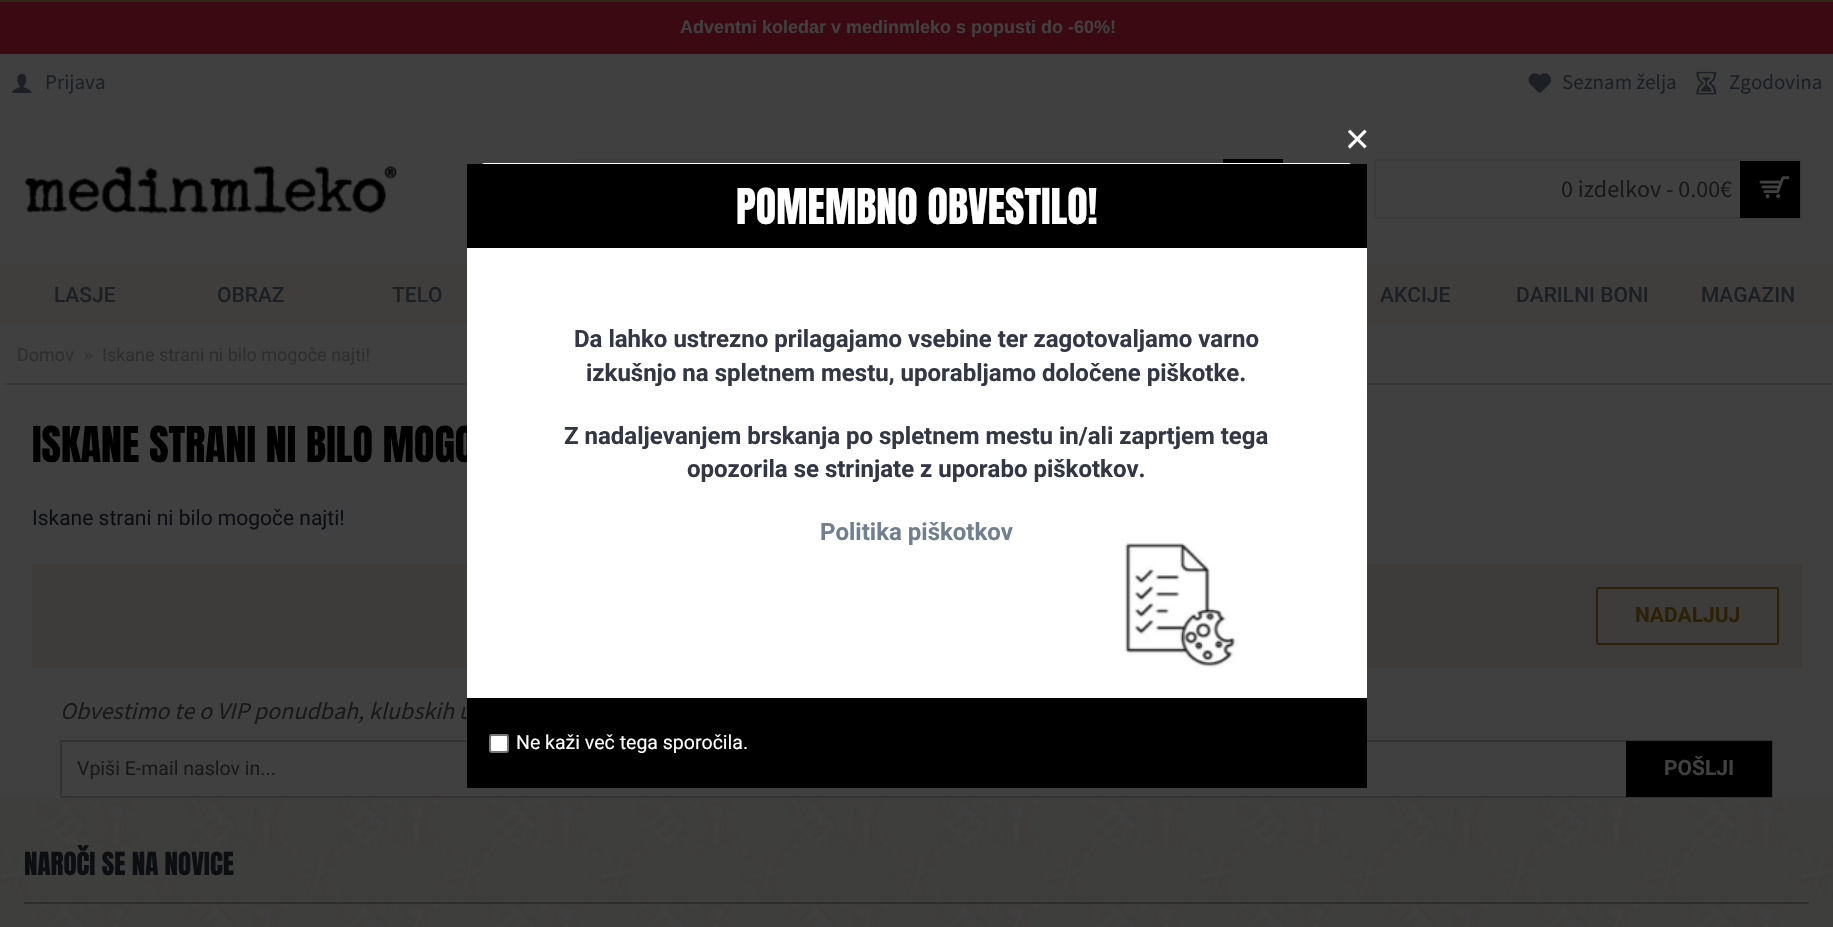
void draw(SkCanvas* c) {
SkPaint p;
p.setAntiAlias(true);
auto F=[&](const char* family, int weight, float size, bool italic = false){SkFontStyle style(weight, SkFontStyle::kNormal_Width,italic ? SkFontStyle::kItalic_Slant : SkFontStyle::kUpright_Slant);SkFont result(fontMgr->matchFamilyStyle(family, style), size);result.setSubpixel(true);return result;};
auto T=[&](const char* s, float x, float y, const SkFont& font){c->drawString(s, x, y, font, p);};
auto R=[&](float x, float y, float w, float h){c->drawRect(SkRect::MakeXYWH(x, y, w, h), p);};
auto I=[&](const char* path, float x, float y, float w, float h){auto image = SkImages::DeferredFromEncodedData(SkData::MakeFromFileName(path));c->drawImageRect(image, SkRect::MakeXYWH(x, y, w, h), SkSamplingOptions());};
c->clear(0xff404040);
p.setColor(0xff31271b);
R(0,0,1833,2);
p.setColor(0xff3b0912);
R(0,2,1833,52);
auto f1 = F("Liberation Sans",700,18);
p.setColor(0xff404040);
T("Adventni koledar v medinmleko s popusti do -60%!",680,33,f1);
I("1.png",12,74,20,19);
auto f2 = F("Source Sans Pro",400,21);
p.setColor(0xff1c2024);
T("Prijava",45,89,f2);
I("2.png",1528,73,23,20);
T("Seznam želja",1562,89,f2);
I("3.png",1696,71,21,24);
T("Zgodovina",1729,89,f2);
I("4.png",25,166,372,48);
p.setStroke(true);
p.setStrokeWidth(2);
p.setColor(0xff3c3c3b);
c->drawRect(SkRect::MakeXYWH(574,160,708,58),p);
p.setStroke(false);
p.setColor(0xff000000);
R(1223,159,60,4);
p.setStroke(true);
p.setColor(0xff3c3c3b);
c->drawRect(SkRect::MakeXYWH(1375,160,426,58),p);
auto f3 = F("Source Sans Pro",400,24);
p.setStroke(false);
p.setColor(0xff191919);
T("0 izdelkov - 0.00€",1561,197,f3);
p.setColor(0xff000000);
R(1740,161,60,57);
I("5.png",1759,176,31,23);
p.setColor(0xff3f3e3d);
R(0,264,1833,60);
auto f4 = F("Roboto",500,21);
p.setColor(0xff1c2024);
T("LASJE",54,302,f4);
T("OBRAZ",217,302,f4);
T("TELO",392,302,f4);
T("AKCIJE",1380,302,f4);
T("DARILNI BONI",1516,302,f4);
T("MAGAZIN",1701,302,f4);
p.setColor(0xff393939);
R(2,383,1830,2);
auto f5 = F("Anton",400,42);
p.setColor(0xff000000);
T("ISKANE STRANI NI BILO MOGO",32,462,f5);
p.setColor(0xff3d3c3a);
R(32,564,1770,104);
p.setColor(0xffffffff);
R(467,248,900,450);
I("6.png",482,163,870,505);
auto f6 = F("Liberation Sans",400,42);
T("×",1345,153,f6);
p.setColor(0xff000000);
R(467,164,900,84);
p.setColor(0xffffffff);
T("POMEMBNO OBVESTILO!",736,224,f5);
auto f7 = F("Roboto",700,24);
p.setColor(0xff333745);
T("Da lahko ustrezno prilagajamo vsebine ter zagotovaljamo varno",574,347,f7);
T("izkušnjo na spletnem mestu, uporabljamo določene piškotke.",586,381,f7);
T("Z nadaljevanjem brskanja po spletnem mestu in/ali zaprtjem tega",564,444,f7);
T("opozorila se strinjate z uporabo piškotkov.",687,477,f7);
p.setColor(0xff708090);
T("Politika piškotkov",820,540,f7);
auto f8 = F("Source Sans Pro",400,24,true);
p.setColor(0xff191919);
T("Obvestimo te o VIP ponudbah, klubskih u",60,719,f8);
p.setStroke(true);
p.setColor(0xff333333);
c->drawRect(SkRect::MakeXYWH(61,741,1711,56),p);
p.setStroke(false);
p.setColor(0xff000000);
R(467,698,900,90);
p.setColor(0xffffffff);
c->drawRoundRect(SkRect::MakeXYWH(490,735,18,17),2,2,p);
p.setStroke(true);
p.setColor(0xff767676);
c->drawRoundRect(SkRect::MakeXYWH(490,735,18,17),2,2,p);
auto f9 = F("Roboto",400,19.5);
p.setStroke(false);
p.setColor(0xffffffff);
T("Ne kaži več tega sporočila.",516,749,f9);
auto f10 = F("Roboto",400,18);
p.setColor(0xff2e2e2e);
T("Domov",17,361,f10);
auto f11 = F("Liberation Serif",400,18);
T("»",84,360,f11);
T("Iskane strani ni bilo mogoče najti!",102,361,f10);
auto f12 = F("Roboto",400,21);
p.setColor(0xff0d0e11);
T("Iskane strani ni bilo mogoče najti!",32,525,f12);
p.setStroke(true);
p.setColor(0xff2c2105);
c->drawRoundRect(SkRect::MakeXYWH(1597,588,181,56),2,2,p);
auto f13 = F("Roboto",700,21);
p.setStroke(false);
T("NADALJUJ",1635,622,f13);
p.setColor(0xff191919);
T("Vpiši E-mail naslov in...",77,775,f9);
p.setColor(0xff000000);
R(1626,741,146,56);
p.setColor(0xff404040);
T("POŠLJI",1664,775,f13);
I("7.png",0,798,1833,129);
p.setColor(0xff2e2e2e);
R(24,902,1785,2);
auto f14 = F("Anton",400,27);
p.setColor(0xff0d0e11);
T("NAROČI SE NA NOVICE",24,875,f14);
}
